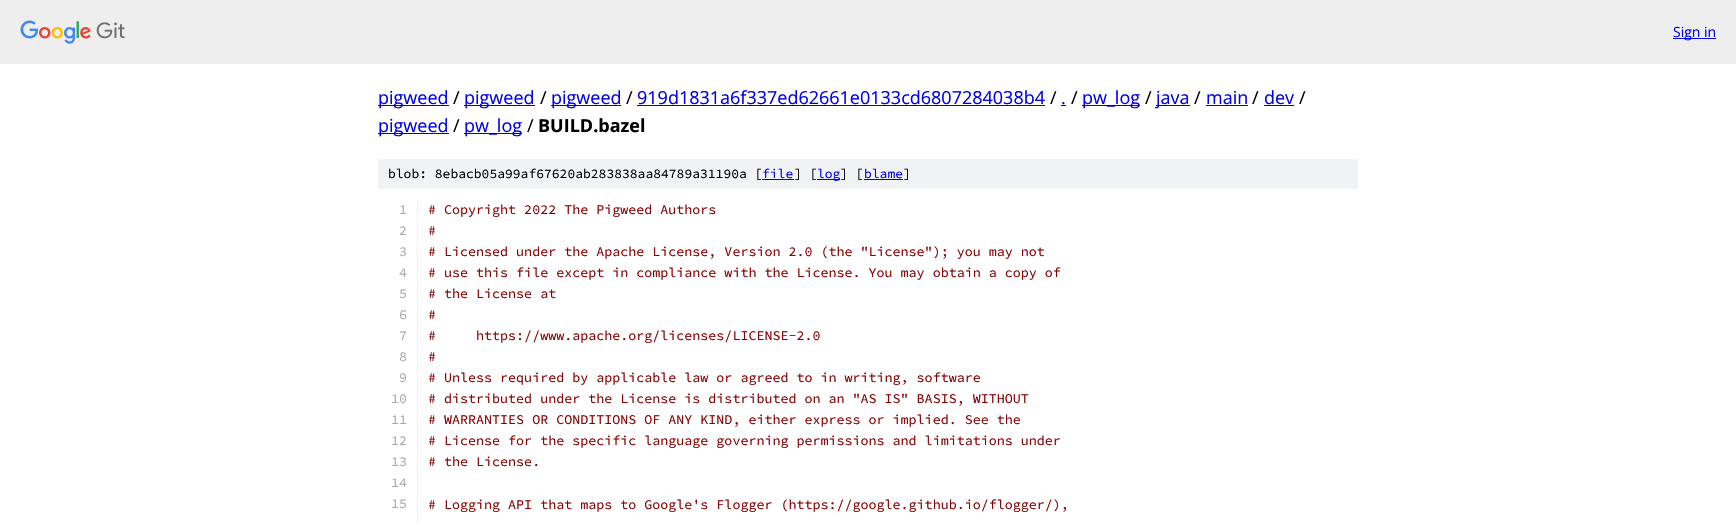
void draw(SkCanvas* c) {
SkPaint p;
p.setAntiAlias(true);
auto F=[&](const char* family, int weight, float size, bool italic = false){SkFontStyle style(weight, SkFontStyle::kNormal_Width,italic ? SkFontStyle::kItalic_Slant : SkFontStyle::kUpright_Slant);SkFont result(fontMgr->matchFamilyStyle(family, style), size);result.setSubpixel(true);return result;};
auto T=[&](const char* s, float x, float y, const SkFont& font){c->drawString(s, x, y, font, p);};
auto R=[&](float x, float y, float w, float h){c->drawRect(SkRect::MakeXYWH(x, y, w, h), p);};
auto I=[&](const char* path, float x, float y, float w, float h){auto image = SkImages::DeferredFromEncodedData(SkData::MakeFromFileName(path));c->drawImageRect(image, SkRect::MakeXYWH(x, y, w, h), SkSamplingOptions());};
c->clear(0xffffffff);
p.setColor(0xffeeeeee);
R(0,0,1736,64);
I("1.png",20,20,105,24);
p.setColor(0xff0000ee);
R(1673,38,43,1);
auto f1 = F("Open Sans",400,14);
T("Sign in",1673,37,f1);
R(378,105,71,1);
auto f2 = F("Open Sans",400,18);
T("pigweed",378,104,f2);
p.setColor(0xff000000);
T("/",453,104,f2);
p.setColor(0xff0000ee);
R(464,105,71,1);
T("pigweed",464,104,f2);
p.setColor(0xff000000);
T("/",540,104,f2);
p.setColor(0xff0000ee);
R(551,105,70,1);
T("pigweed",551,104,f2);
p.setColor(0xff000000);
T("/",626,104,f2);
p.setColor(0xff0000ee);
T("919d1831a6f337ed62661e0133cd6807284038b4",637,104,f2);
R(637,105,408,1);
p.setColor(0xff000000);
T("/",1050,104,f2);
p.setColor(0xff0000ee);
T(".",1061,104,f2);
R(1061,105,5,1);
p.setColor(0xff000000);
T("/",1071,104,f2);
p.setColor(0xff0000ee);
R(1082,105,58,1);
T("pw_log",1082,104,f2);
p.setColor(0xff000000);
T("/",1145,104,f2);
p.setColor(0xff0000ee);
R(1156,105,34,1);
T("java",1156,104,f2);
p.setColor(0xff000000);
T("/",1194,104,f2);
p.setColor(0xff0000ee);
T("main",1206,104,f2);
R(1206,105,42,1);
p.setColor(0xff000000);
T("/",1252,104,f2);
p.setColor(0xff0000ee);
T("dev",1264,104,f2);
R(1264,105,30,1);
p.setColor(0xff000000);
T("/",1299,104,f2);
p.setColor(0xff0000ee);
R(378,133,71,1);
T("pigweed",378,132,f2);
p.setColor(0xff000000);
T("/",453,132,f2);
p.setColor(0xff0000ee);
R(464,133,58,1);
T("pw_log",464,132,f2);
p.setColor(0xff000000);
T("/",527,132,f2);
auto f3 = F("Open Sans",700,18);
T("BUILD.bazel",538,132,f3);
p.setColor(0xfff1f2f3);
R(378,159,980,30);
auto f4 = F("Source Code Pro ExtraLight",200,13);
p.setColor(0xff000000);
T("blob: 8ebacb05a99af67620ab283838aa84789a31190a [",388,178,f4);
p.setColor(0xff0000ee);
T("file",762,178,f4);
R(762,179,32,1);
p.setColor(0xff000000);
T("] [",794,178,f4);
p.setColor(0xff0000ee);
R(817,179,23,1);
T("log",817,178,f4);
p.setColor(0xff000000);
T("] [",840,178,f4);
p.setColor(0xff0000ee);
T("blame",864,178,f4);
R(864,179,39,1);
p.setColor(0xff000000);
T("]",903,178,f4);
p.setColor(0xfff1f2f3);
R(417,200,1,20);
auto f5 = F("Source Code Pro ExtraLight",200,13.35);
p.setColor(0xffaaaaaa);
T("1",399,214,f5);
p.setColor(0xff880000);
T("# Copyright 2022 The Pigweed Authors",428,214,f5);
p.setColor(0xfff1f2f3);
R(417,221,1,20);
p.setColor(0xffaaaaaa);
T("2",399,235,f5);
p.setColor(0xff880000);
T("#",428,235,f5);
p.setColor(0xfff1f2f3);
R(417,242,1,282);
p.setColor(0xffaaaaaa);
T("3",399,256,f5);
p.setColor(0xff880000);
T("# Licensed under the Apache License, Version 2.0 (the \"License\"); you may not",428,256,f5);
p.setColor(0xffaaaaaa);
T("4",399,277,f5);
p.setColor(0xff880000);
T("# use this file except in compliance with the License. You may obtain a copy of",428,277,f5);
p.setColor(0xffaaaaaa);
T("5",399,298,f5);
p.setColor(0xff880000);
T("# the License at",428,298,f5);
p.setColor(0xffaaaaaa);
T("6",399,319,f5);
p.setColor(0xff880000);
T("#",428,319,f5);
p.setColor(0xffaaaaaa);
T("7",399,340,f5);
p.setColor(0xff880000);
T("#     https://www.apache.org/licenses/LICENSE-2.0",428,340,f5);
p.setColor(0xffaaaaaa);
T("8",399,361,f5);
p.setColor(0xff880000);
T("#",428,361,f5);
p.setColor(0xffaaaaaa);
T("9",399,382,f5);
p.setColor(0xff880000);
T("# Unless required by applicable law or agreed to in writing, software",428,382,f5);
p.setColor(0xffaaaaaa);
T("10",391,403,f5);
p.setColor(0xff880000);
T("# distributed under the License is distributed on an \"AS IS\" BASIS, WITHOUT",428,403,f5);
p.setColor(0xffaaaaaa);
T("11",391,424,f5);
p.setColor(0xff880000);
T("# WARRANTIES OR CONDITIONS OF ANY KIND, either express or implied. See the",428,424,f5);
p.setColor(0xffaaaaaa);
T("12",391,445,f5);
p.setColor(0xff880000);
T("# License for the specific language governing permissions and limitations under",428,445,f5);
p.setColor(0xffaaaaaa);
T("13",391,466,f5);
p.setColor(0xff880000);
T("# the License.",428,466,f5);
p.setColor(0xffaaaaaa);
T("14",391,487,f5);
T("15",391,508,f5);
p.setColor(0xff880000);
T("# Logging API that maps to Google's Flogger (https://google.github.io/flogger/),",428,509,f5);
}
